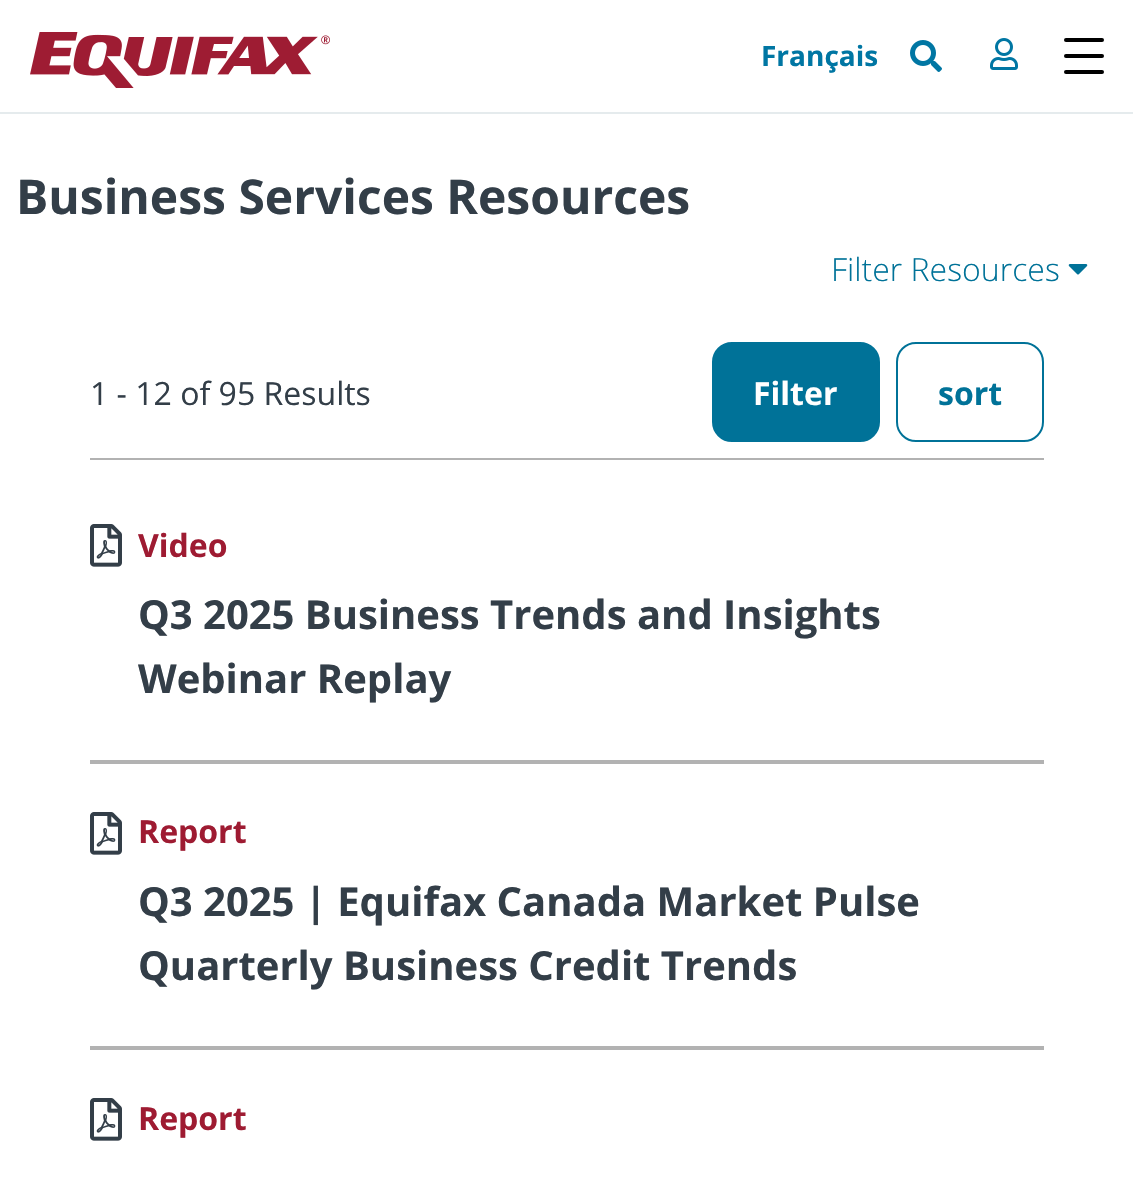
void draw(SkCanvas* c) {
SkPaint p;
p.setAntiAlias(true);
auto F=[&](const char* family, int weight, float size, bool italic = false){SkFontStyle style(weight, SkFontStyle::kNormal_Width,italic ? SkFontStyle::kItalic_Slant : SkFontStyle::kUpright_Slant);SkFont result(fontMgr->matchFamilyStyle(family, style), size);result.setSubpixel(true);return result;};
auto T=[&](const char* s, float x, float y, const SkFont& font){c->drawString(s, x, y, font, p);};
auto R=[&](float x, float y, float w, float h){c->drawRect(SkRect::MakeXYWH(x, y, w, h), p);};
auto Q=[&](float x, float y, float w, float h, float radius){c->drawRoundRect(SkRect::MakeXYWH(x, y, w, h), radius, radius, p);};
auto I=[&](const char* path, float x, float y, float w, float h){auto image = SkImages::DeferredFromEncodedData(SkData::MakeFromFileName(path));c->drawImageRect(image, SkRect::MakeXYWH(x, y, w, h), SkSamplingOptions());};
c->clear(0xffffffff);
p.setColor(0xffe5ebed);
R(0,112,1133,2);
I("1.png",30,32,300,56);
auto f1 = F("Open Sans",700,28);
p.setColor(0xff0076a3);
T("Français",761,66,f1);
I("2.png",910,40,32,32);
I("3.png",990,38,28,32);
p.setColor(0xff000000);
Q(1064,54,40,4,2);
Q(1064,38,40,4,2);
Q(1064,70,40,4,2);
auto f2 = F("Open Sans",700,48);
p.setColor(0xff333e48);
T("Business Services Resources",16,214,f2);
auto f3 = F("Open Sans",300,32);
p.setColor(0xff007298);
T("Filter Resources",831,281,f3);
I("4.png",1068,264,20,11);
p.setColor(0xffb2b2b2);
R(90,458,954,2);
auto f4 = F("Open Sans",400,32);
p.setColor(0xff333e48);
T("1 - 12 of 95 Results",90,405,f4);
p.setColor(0xff007298);
c->drawRoundRect(SkRect::MakeXYWH(713,343,166,98),19,19,p);
p.setStroke(true);
p.setStrokeWidth(2);
c->drawRoundRect(SkRect::MakeXYWH(713,343,166,98),19,19,p);
auto f5 = F("Open Sans",700,32);
p.setStroke(false);
p.setColor(0xffffffff);
T("Filter",753,405,f5);
p.setStroke(true);
p.setColor(0xff007298);
c->drawRoundRect(SkRect::MakeXYWH(897,343,146,98),19,19,p);
p.setStroke(false);
T("sort",938,405,f5);
p.setColor(0xffb2b2b2);
R(90,760,954,4);
I("5.png",90,524,32,43);
p.setColor(0xff9e1b32);
T("Video",138,557,f5);
auto f6 = F("Open Sans",700,40);
p.setColor(0xff333e48);
T("Q3 2025 Business Trends and Insights",138,629,f6);
T("Webinar Replay",138,693,f6);
p.setColor(0xffb2b2b2);
R(90,1046,954,4);
I("5.png",90,812,32,43);
p.setColor(0xff9e1b32);
T("Report",138,843,f5);
p.setColor(0xff333e48);
T("Q3 2025 | Equifax Canada Market Pulse",138,916,f6);
T("Quarterly Business Credit Trends",138,980,f6);
I("5.png",90,1098,32,43);
p.setColor(0xff9e1b32);
T("Report",138,1130,f5);
}
